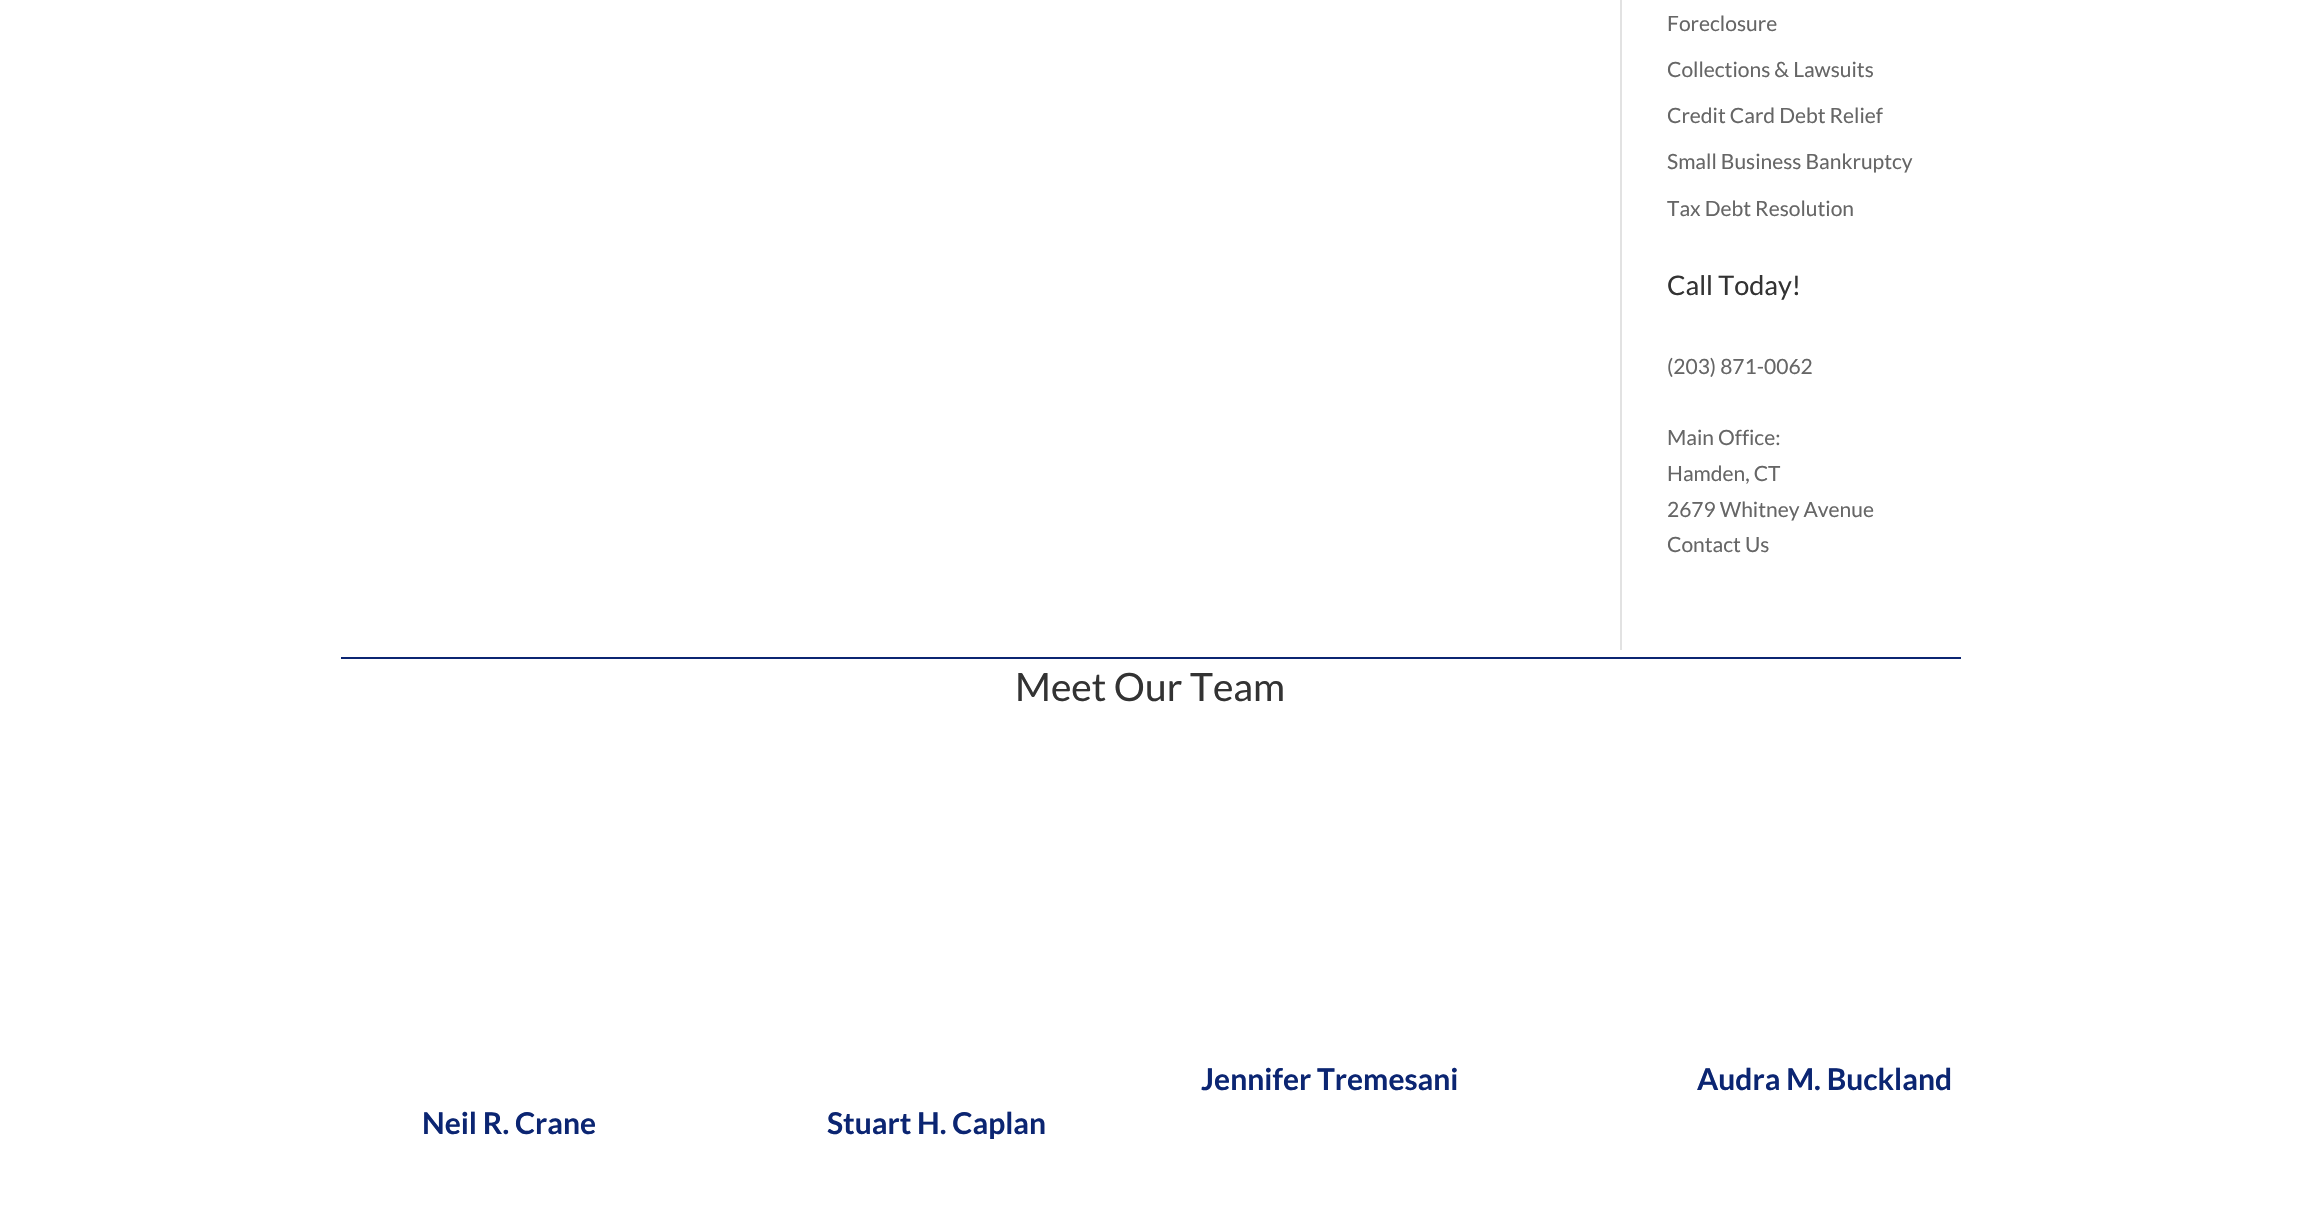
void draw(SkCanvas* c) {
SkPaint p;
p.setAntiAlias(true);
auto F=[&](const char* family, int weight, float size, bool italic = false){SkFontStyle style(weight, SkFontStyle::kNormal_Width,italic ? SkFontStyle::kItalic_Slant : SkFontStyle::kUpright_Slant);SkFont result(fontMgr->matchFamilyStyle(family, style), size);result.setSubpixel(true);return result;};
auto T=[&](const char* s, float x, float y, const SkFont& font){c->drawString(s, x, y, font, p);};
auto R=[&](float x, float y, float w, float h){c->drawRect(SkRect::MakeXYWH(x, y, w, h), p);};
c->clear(0xffffffff);
p.setColor(0xffe2e2e2);
R(1620,0,2,650);
auto f1 = F("Lato",400,21);
p.setColor(0xff666666);
T("Foreclosure",1667,31,f1);
T("Collections & Lawsuits",1667,77,f1);
T("Credit Card Debt Relief",1667,123,f1);
T("Small Business Bankruptcy",1667,169,f1);
T("Tax Debt Resolution",1667,216,f1);
auto f2 = F("Lato",400,27);
p.setColor(0xff333333);
T("Call Today!",1667,295,f2);
p.setColor(0xff666666);
T("(203) 871-0062",1667,374,f1);
T("Main Office:",1667,445,f1);
T("Hamden, CT",1667,481,f1);
T("2679 Whitney Avenue",1667,517,f1);
T("Contact Us",1667,552,f1);
p.setColor(0xff0b2572);
R(341,657,1620,2);
auto f3 = F("Lato",400,39);
p.setColor(0xff333333);
T("Meet Our Team",1015,701,f3);
auto f4 = F("Lato",700,30);
p.setColor(0xff0b2572);
T("Jennifer Tremesani",1201,1090,f4);
T("Audra M. Buckland",1697,1090,f4);
T("Neil R. Crane",422,1134,f4);
T("Stuart H. Caplan",827,1134,f4);
}
